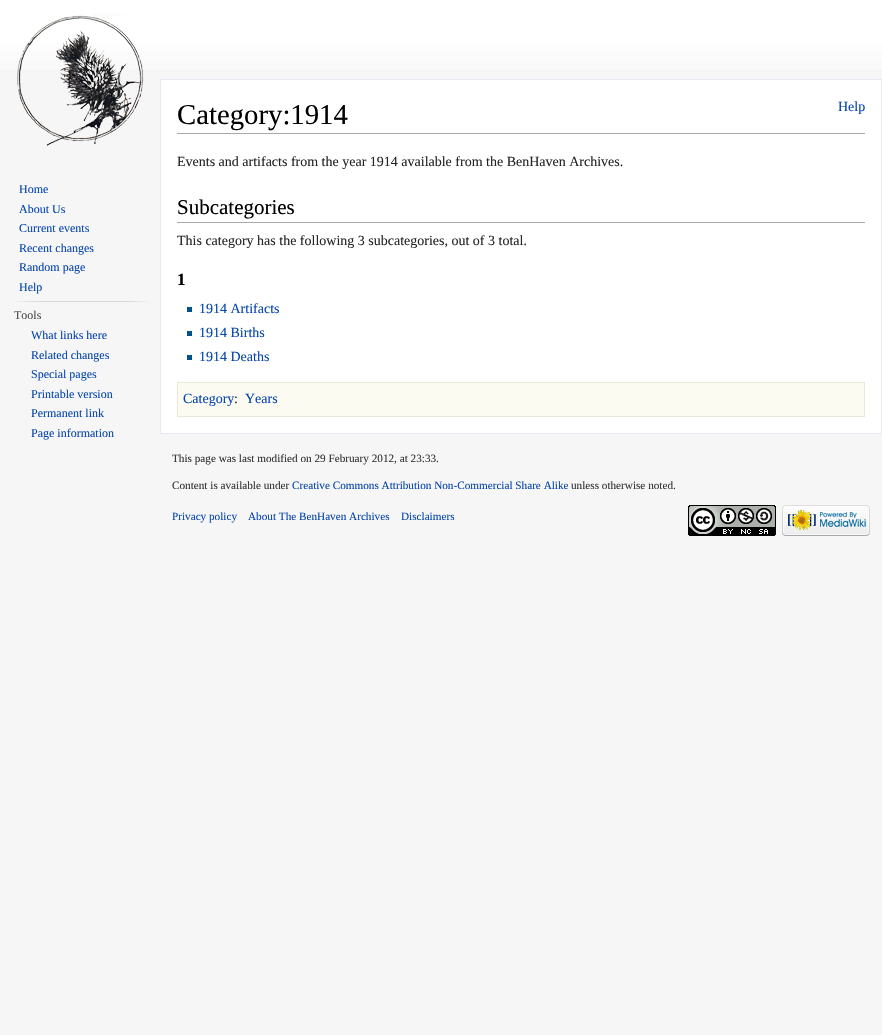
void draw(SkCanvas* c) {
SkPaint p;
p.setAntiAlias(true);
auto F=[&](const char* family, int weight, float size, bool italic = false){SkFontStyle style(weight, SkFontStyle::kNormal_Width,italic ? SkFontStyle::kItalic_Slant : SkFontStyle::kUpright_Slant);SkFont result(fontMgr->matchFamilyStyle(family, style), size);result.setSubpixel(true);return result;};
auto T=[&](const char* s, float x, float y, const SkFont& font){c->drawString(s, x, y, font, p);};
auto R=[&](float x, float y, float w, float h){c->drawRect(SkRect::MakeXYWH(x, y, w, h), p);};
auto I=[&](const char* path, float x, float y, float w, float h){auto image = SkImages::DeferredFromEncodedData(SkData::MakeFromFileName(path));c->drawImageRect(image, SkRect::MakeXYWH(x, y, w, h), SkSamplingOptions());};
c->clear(0xfff6f6f6);
{
const SkColor colors[] = {0xffffffff,0xfff6f6f6};
const float stops[] = {.5,1};
const SkPoint ends[] = {{441,0}, {441,80}};
p.setShader(SkGradientShader::MakeLinear(ends, colors, stops, 2, SkTileMode::kClamp));
p.setAlpha(255);
}
R(0,0,882,69);
I("1.png",13,14,131,132);
auto f1 = F("Liberation Serif",400,12);
p.setShader(nullptr);
p.setColor(0xff0645ad);
T("Home",19,193,f1);
T("About Us",19,213,f1);
T("Current events",19,232,f1);
T("Recent changes",19,252,f1);
T("Random page",19,271,f1);
T("Help",19,291,f1);
I("2.png",14,301,135,1);
p.setColor(0xff4d4d4d);
T("Tools",14,319,f1);
p.setColor(0xff0645ad);
T("What links here",31,339,f1);
T("Related changes",31,359,f1);
T("Special pages",31,378,f1);
T("Printable version",31,398,f1);
T("Permanent link",31,417,f1);
T("Page information",31,437,f1);
p.setColor(0xffffffff);
c->drawRect(SkRect::MakeXYWH(160.5,79.5,721,354),p);
p.setStroke(true);
p.setStrokeWidth(1);
p.setColor(0xffe9e9f1);
c->drawRect(SkRect::MakeXYWH(160.5,79.5,721,354),p);
p.setStroke(false);
p.setColor(0xffaaaaaa);
R(177,133,688,1);
auto f2 = F("Liberation Serif",400,28.75);
p.setColor(0xff000000);
T("Category:1914",177,124,f2);
auto f3 = F("Liberation Serif",400,14);
p.setColor(0xff0645ad);
T("Help",838,111,f3);
p.setColor(0xff252525);
T("Events and artifacts from the year 1914 available from the BenHaven Archives.",177,166,f3);
p.setColor(0xffaaaaaa);
R(177,222,688,1);
auto f4 = F("Liberation Serif",400,21);
p.setColor(0xff000000);
T("Subcategories",177,214,f4);
p.setColor(0xff252525);
T("This category has the following 3 subcategories, out of 3 total.",177,245,f3);
auto f5 = F("Liberation Serif",700,17);
p.setColor(0xff000000);
T("1",177,285,f5);
p.setColor(0xff00528c);
R(187,307,5,5);
p.setColor(0xff0645ad);
T("1914 Artifacts",199,313,f3);
p.setColor(0xff00528c);
R(187,331,5,5);
p.setColor(0xff0645ad);
T("1914 Births",199,337,f3);
p.setColor(0xff00528c);
R(187,355,5,5);
p.setColor(0xff0645ad);
T("1914 Deaths",199,361,f3);
p.setColor(0xfffbfbf2);
c->drawRect(SkRect::MakeXYWH(177.5,382.5,687,34),p);
p.setStroke(true);
p.setColor(0xffe8e8db);
c->drawRect(SkRect::MakeXYWH(177.5,382.5,687,34),p);
p.setStroke(false);
p.setColor(0xff0645ad);
T("Category",183,403,f3);
p.setColor(0xff252525);
T(":",234,403,f3);
p.setColor(0xff0645ad);
T("Years",245,403,f3);
auto f6 = F("Liberation Serif",400,11.2);
p.setColor(0xff333333);
T("This page was last modified on 29 February 2012, at 23:33.",172,462,f6);
T("Content is available under",172,489,f6);
p.setColor(0xff0645ad);
T("Creative Commons Attribution Non-Commercial Share Alike",292,489,f6);
p.setColor(0xff333333);
T("unless otherwise noted.",571,489,f6);
p.setColor(0xff0645ad);
T("Privacy policy",172,520,f6);
T("About The BenHaven Archives",248,520,f6);
T("Disclaimers",401,520,f6);
I("3.png",688,505,88,31);
I("4.png",782,505,88,31);
}
